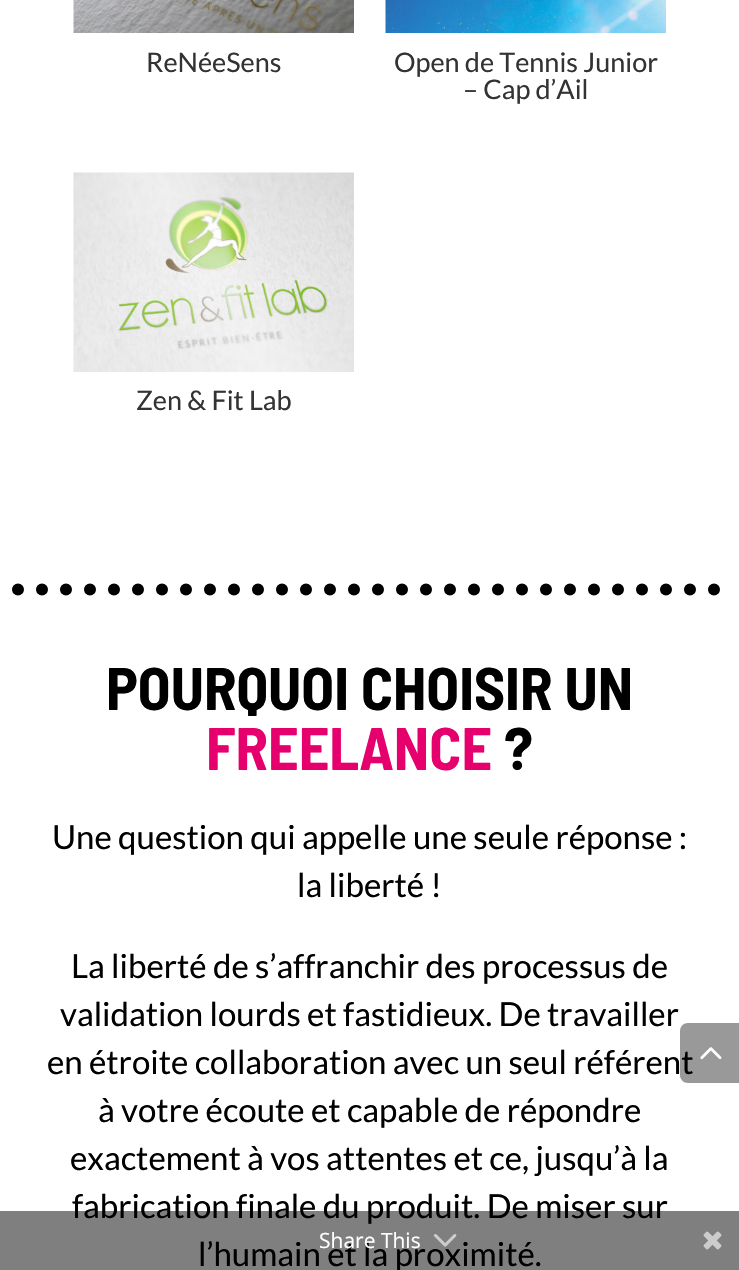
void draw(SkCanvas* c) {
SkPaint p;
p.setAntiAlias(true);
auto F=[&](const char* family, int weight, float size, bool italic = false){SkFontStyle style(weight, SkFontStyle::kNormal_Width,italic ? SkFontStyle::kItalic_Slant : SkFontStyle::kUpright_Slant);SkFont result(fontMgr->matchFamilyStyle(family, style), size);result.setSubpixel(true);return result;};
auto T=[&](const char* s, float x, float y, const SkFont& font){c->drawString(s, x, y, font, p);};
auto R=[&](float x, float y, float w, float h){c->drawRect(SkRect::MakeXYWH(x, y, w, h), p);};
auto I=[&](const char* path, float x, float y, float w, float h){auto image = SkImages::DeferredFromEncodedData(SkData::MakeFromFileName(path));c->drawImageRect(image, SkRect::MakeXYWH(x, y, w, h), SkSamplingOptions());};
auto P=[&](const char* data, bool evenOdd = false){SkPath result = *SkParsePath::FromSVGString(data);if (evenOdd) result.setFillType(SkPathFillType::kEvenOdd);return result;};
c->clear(0xffffffff);
I("1.png",73,0,281,33);
auto f1 = F("Lato",400,27);
p.setColor(0xff333333);
T("ReNéeSens",146,72,f1);
I("2.png",385,0,281,33);
T("Open de Tennis Junior",394,72,f1);
T("– Cap d’Ail",463,99,f1);
I("3.png",73,172,281,200);
T("Zen & Fit Lab",136,410,f1);
p.setStroke(true);
p.setStrokeWidth(12);
p.setStrokeCap(SkPaint::kRound_Cap);
p.setColor(0xff000000);
p.setPathEffect(SkDashPathEffect::Make({{0,24}}, 0));
c->drawPath(P("M18 589.5h703.5"),p);
p.setPathEffect(nullptr);
auto f2 = F("Barlow Semi Condensed",700,60);
p.setStroke(false);
T("POURQUOI CHOISIR UN",106,710,f2);
p.setColor(0xffe6006d);
T("FREELANCE",206,770,f2);
p.setColor(0xff000000);
T("?",504,770,f2);
auto f3 = F("Lato",400,33);
T("Une question qui appelle une seule réponse :",52,849,f3);
T("la liberté !",297,897,f3);
T("La liberté de s’affranchir des processus de",71,978,f3);
T("validation lourds et fastidieux. De travailler",60,1026,f3);
T("en étroite collaboration avec un seul référent",47,1074,f3);
T("à votre écoute et capable de répondre",98,1122,f3);
T("exactement à vos attentes et ce, jusqu’à la",70,1170,f3);
T("fabrication finale du produit. De miser sur",72,1218,f3);
T("l’humain et la proximité.",198,1266,f3);
p.setColor(0x66000000);
c->drawPath(P("M688 1023h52v60h-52c-4.5 0-8-3.5-8-8v-44c0-4.5 3.5-8 8-8z"),p);
I("4.png",700,1047,22,13);
p.setColor(0x80000000);
R(0,1211,739,59);
auto f4 = F("Open Sans",400,21);
p.setColor(0xffffffff);
T("Share This",319,1248,f4);
I("5.png",433,1234,24,13);
I("6.png",703,1231,19,19);
}
